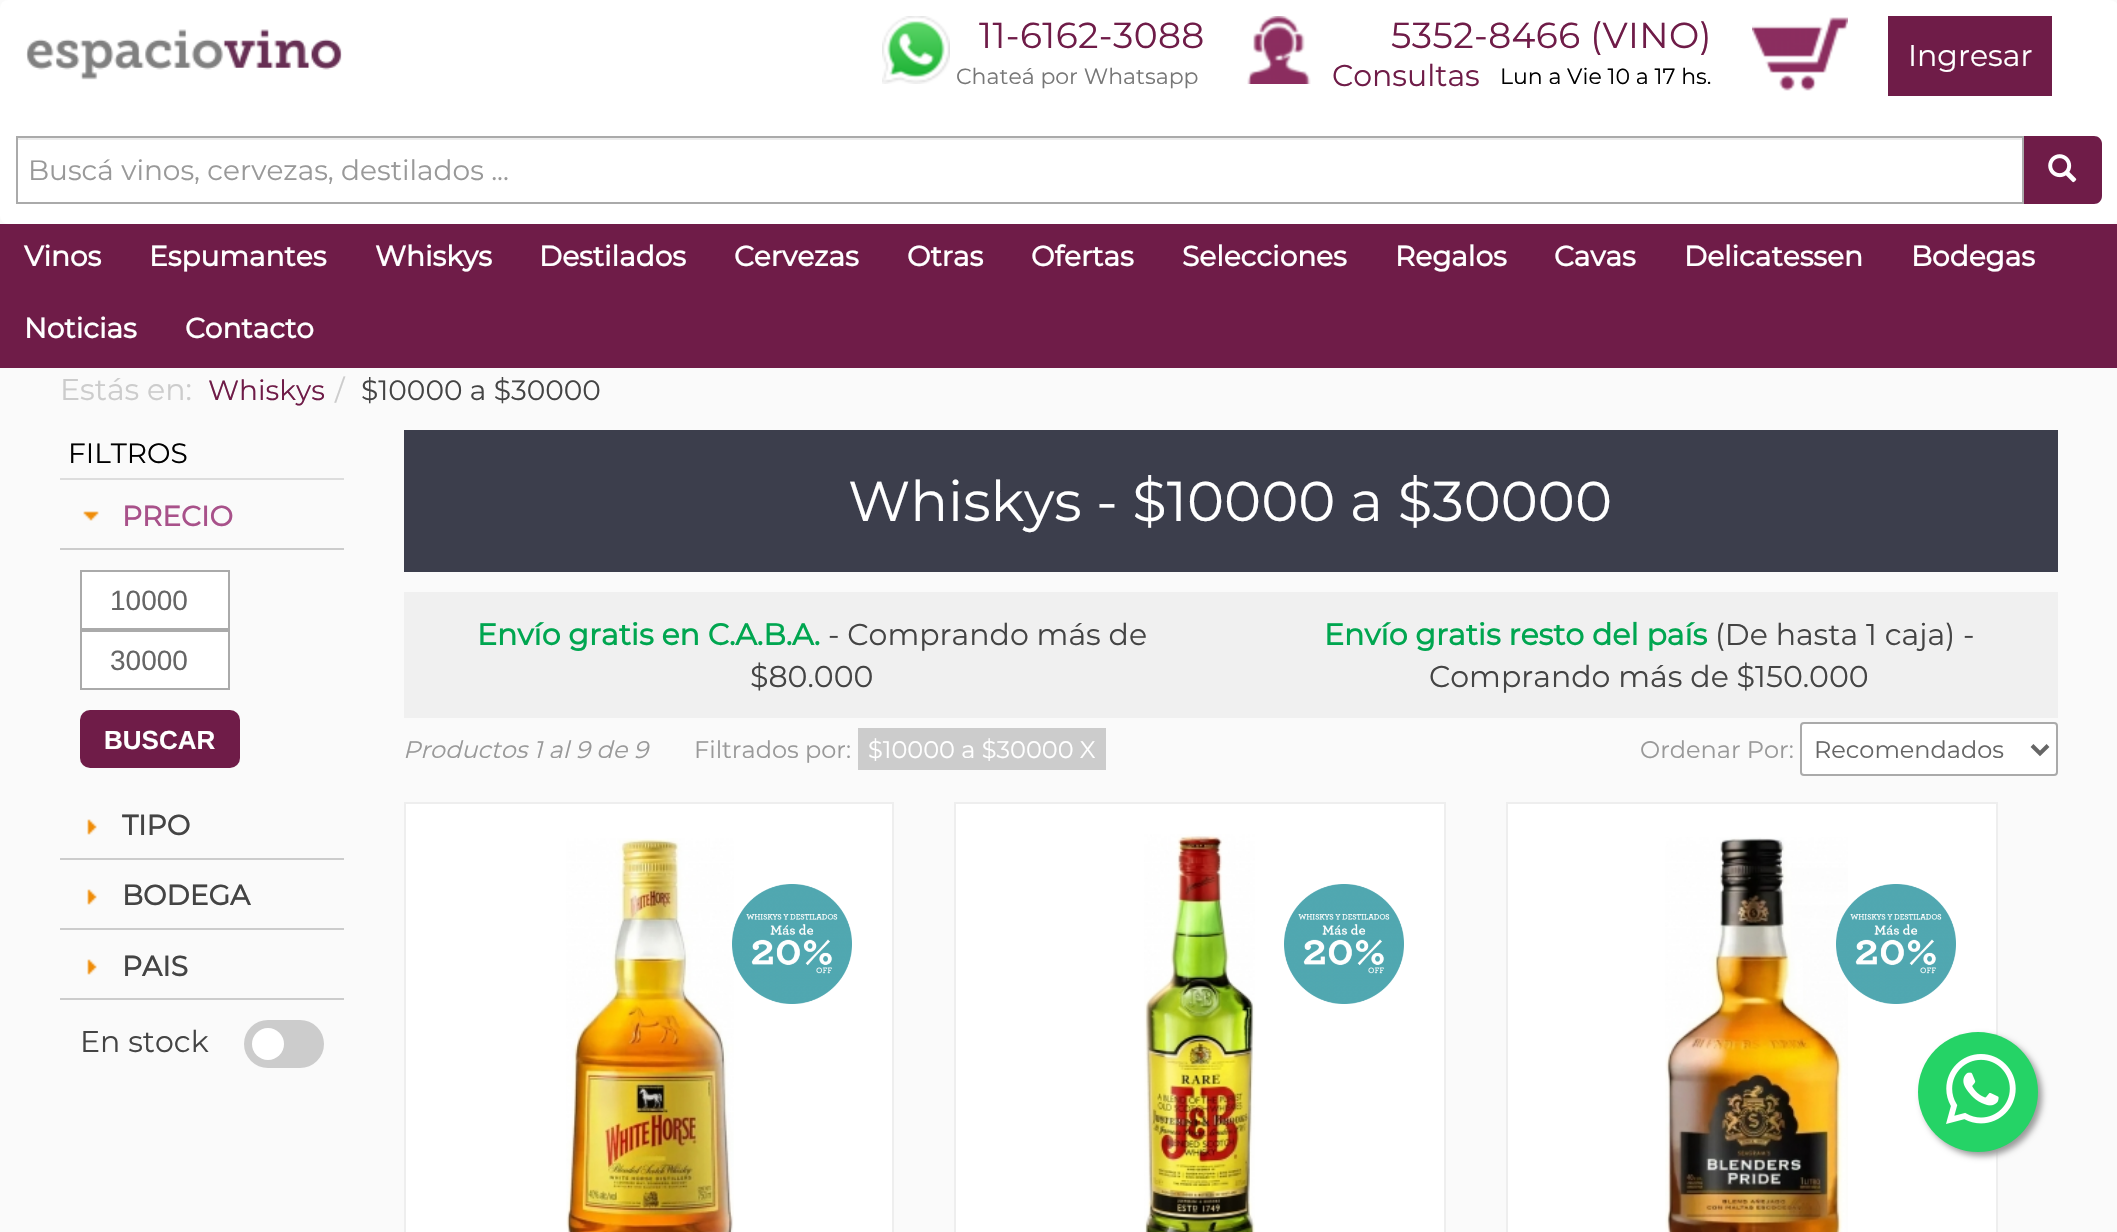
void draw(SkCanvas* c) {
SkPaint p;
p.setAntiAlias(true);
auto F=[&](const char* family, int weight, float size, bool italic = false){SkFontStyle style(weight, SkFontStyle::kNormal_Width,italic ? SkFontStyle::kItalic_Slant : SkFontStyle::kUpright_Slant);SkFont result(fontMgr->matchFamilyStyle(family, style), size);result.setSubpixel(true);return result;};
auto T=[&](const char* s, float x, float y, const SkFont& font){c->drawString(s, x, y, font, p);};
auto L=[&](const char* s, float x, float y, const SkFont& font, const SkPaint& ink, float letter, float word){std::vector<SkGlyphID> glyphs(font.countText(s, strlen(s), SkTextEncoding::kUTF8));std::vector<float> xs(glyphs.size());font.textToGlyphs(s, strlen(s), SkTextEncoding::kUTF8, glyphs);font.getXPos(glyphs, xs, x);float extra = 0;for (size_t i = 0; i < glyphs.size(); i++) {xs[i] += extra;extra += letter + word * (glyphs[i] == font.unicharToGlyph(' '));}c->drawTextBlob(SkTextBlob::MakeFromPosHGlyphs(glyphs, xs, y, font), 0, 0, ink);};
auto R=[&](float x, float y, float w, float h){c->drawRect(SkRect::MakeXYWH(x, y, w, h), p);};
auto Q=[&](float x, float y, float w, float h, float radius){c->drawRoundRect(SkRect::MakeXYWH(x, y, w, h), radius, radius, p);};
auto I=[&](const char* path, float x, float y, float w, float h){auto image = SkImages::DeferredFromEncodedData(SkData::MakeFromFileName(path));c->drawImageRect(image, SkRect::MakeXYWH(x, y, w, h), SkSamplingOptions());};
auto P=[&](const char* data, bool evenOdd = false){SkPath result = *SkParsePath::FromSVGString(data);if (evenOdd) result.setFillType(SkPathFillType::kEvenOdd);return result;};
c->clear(0xfffafafa);
p.setColor(0xffffffff);
Q(0,0,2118,224,8);
I("1.png",26,29,316,51);
I("2.png",882,16,68,68);
auto f1 = F("Montserrat",100,36);
p.setColor(0xff6f1c48);
L("11-6162-3088",979,48,f1,p,.4,0);
auto f2 = F("Montserrat",100,22);
p.setColor(0xff777777);
T("Chateá por Whatsapp",956,84,f2);
I("3.png",1247,16,64,68);
p.setColor(0xff6f1c48);
L("5352-8466 (VINO)",1391,48,f1,p,.4,0);
auto f3 = F("Montserrat",100,30);
T("Consultas",1332,86,f3);
p.setColor(0xff000000);
T("Lun a Vie 10 a 17 hs.",1500,84,f2);
I("4.png",1752,17,96,74);
p.setColor(0xff6f1c48);
R(1888,16,164,80);
p.setColor(0xffffffff);
T("Ingresar",1908,66,f3);
p.setColor(0xffececec);
R(18,138,2004,2);
p.setColor(0xff6f1c48);
c->drawPath(P("M2022 136h72c4.5 0 8 3.5 8 8v52c0 4.5-3.5 8-8 8h-72z"),p);
p.setStroke(true);
p.setStrokeWidth(2);
p.setColor(0xffaaaaaa);
c->drawRect(SkRect::MakeXYWH(17,137,2006,66),p);
auto f4 = F("Montserrat",100,28);
p.setStroke(false);
p.setColor(0xff999999);
T("Buscá vinos, cervezas, destilados ...",28,180,f4);
I("5.png",2048,154,29,29);
p.setColor(0xff6f1c48);
R(0,224,2117,144);
auto f5 = F("Montserrat",700,28);
p.setColor(0xffffffff);
T("Vinos",24,266,f5);
T("Espumantes",149,266,f5);
T("Whiskys",375,266,f5);
T("Destilados",539,266,f5);
T("Cervezas",734,266,f5);
T("Otras",907,266,f5);
T("Ofertas",1031,266,f5);
T("Selecciones",1182,266,f5);
T("Regalos",1395,266,f5);
T("Cavas",1554,266,f5);
T("Delicatessen",1684,266,f5);
T("Bodegas",1911,266,f5);
T("Noticias",24,338,f5);
T("Contacto",185,338,f5);
p.setColor(0xffcccccc);
T("Estás en:",60,400,f3);
p.setColor(0xff6f1c48);
T("Whiskys",208,400,f4);
p.setColor(0xffcccccc);
T("/",335,400,f4);
p.setColor(0xff444444);
T("$10000 a $30000",361,400,f4);
p.setColor(0xffdddddd);
R(60,478,284,2);
p.setColor(0xff000000);
T("FILTROS",68,463,f4);
p.setColor(0xffcccccc);
R(60,548,284,2);
I("6.png",83,511,16,10);
p.setColor(0xffa8518a);
T("PRECIO",122,526,f5);
p.setColor(0xffffffff);
c->drawRect(SkRect::MakeXYWH(81,571,148,58),p);
p.setStroke(true);
p.setColor(0xffaaaaaa);
c->drawRect(SkRect::MakeXYWH(81,571,148,58),p);
auto f6 = F("Liberation Sans",400,28);
p.setStroke(false);
p.setColor(0xff666666);
T("10000",110,610,f6);
p.setColor(0xffffffff);
c->drawRect(SkRect::MakeXYWH(81,631,148,58),p);
p.setStroke(true);
p.setColor(0xffaaaaaa);
c->drawRect(SkRect::MakeXYWH(81,631,148,58),p);
p.setStroke(false);
p.setColor(0xff666666);
T("30000",110,670,f6);
p.setColor(0xff6f1c48);
Q(80,710,160,58,10);
auto f7 = F("Liberation Sans",700,26);
p.setColor(0xffffffff);
T("BUSCAR",104,749,f7);
p.setColor(0xffcccccc);
R(60,858,284,2);
I("7.png",87,819,10,16);
p.setColor(0xff444444);
T("TIPO",122,835,f5);
p.setColor(0xffcccccc);
R(60,928,284,2);
I("7.png",87,889,10,16);
p.setColor(0xff444444);
T("BODEGA",122,905,f5);
p.setColor(0xffcccccc);
R(60,998,284,2);
I("7.png",87,959,10,16);
p.setColor(0xff444444);
T("PAIS",122,976,f5);
T("En stock",80,1052,f3);
p.setColor(0xffcccccc);
Q(244,1020,80,48,24);
p.setColor(0xffffffff);
c->drawCircle(268,1044,16,p);
p.setColor(0xff3c3e4c);
R(404,430,1654,142);
auto f8 = F("Montserrat",100,56);
p.setColor(0xffffffff);
T("Whiskys - $10000 a $30000",848,521,f8);
p.setColor(0xfff0f0f0);
R(404,592,1654,126);
auto f9 = F("Montserrat",700,30);
p.setColor(0xff00a650);
T("Envío gratis en C.A.B.A.",477,645,f9);
p.setColor(0xff444444);
T("- Comprando más de",828,645,f3);
T("$80.000",750,687,f3);
p.setColor(0xff00a650);
T("Envío gratis resto del país",1324,645,f9);
p.setColor(0xff444444);
T("(De hasta 1 caja) -",1715,645,f3);
T("Comprando más de $150.000",1429,687,f3);
auto f10 = F("Montserrat",100,24,true);
p.setColor(0xff999999);
T("Productos 1 al 9 de 9",403,758,f10);
auto f11 = F("Montserrat",100,24);
T("Filtrados por:",694,758,f11);
p.setColor(0xffcccccc);
R(858,728,248,42);
p.setColor(0xffffffff);
T("$10000 a $30000 X",868,758,f11);
p.setColor(0xff999999);
T("Ordenar Por:",1640,758,f11);
p.setColor(0xffffffff);
c->drawRoundRect(SkRect::MakeXYWH(1801,723,256,52),3,3,p);
p.setStroke(true);
p.setColor(0xffaaaaaa);
c->drawRoundRect(SkRect::MakeXYWH(1801,723,256,52),3,3,p);
p.setStrokeWidth(4);
p.setColor(0xff666666);
c->drawPath(P("M2032 745.5l8 8l8-8"),p);
p.setStroke(false);
T("Recomendados",1814,758,f11);
p.setColor(0xffffffff);
c->drawRect(SkRect::MakeXYWH(405,803,488,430),p);
p.setStroke(true);
p.setStrokeWidth(2);
p.setColor(0xffeeeeee);
c->drawRect(SkRect::MakeXYWH(405,803,488,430),p);
I("8.png",566,838,168,394);
I("9.png",732,884,120,120);
p.setStroke(false);
p.setColor(0xffffffff);
c->drawRect(SkRect::MakeXYWH(955,803,490,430),p);
p.setStroke(true);
p.setColor(0xffeeeeee);
c->drawRect(SkRect::MakeXYWH(955,803,490,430),p);
I("10.png",1144,834,111,398);
I("11.png",1284,884,120,120);
p.setStroke(false);
p.setColor(0xffffffff);
c->drawRect(SkRect::MakeXYWH(1507,803,490,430),p);
p.setStroke(true);
p.setColor(0xffeeeeee);
c->drawRect(SkRect::MakeXYWH(1507,803,490,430),p);
I("12.png",1665,837,183,395);
I("13.png",1836,884,120,120);
p.setStroke(false);
p.setColor(0xff999999);
p.setMaskFilter(SkMaskFilter::MakeBlur(kNormal_SkBlurStyle, 3));
c->drawRoundRect(SkRect::MakeXYWH(1922,1036,120,120),60,60,p);
p.setMaskFilter(nullptr);
p.setColor(0xff25d366);
c->drawCircle(1978,1092,60,p);
I("14.png",1946,1054,70,70);
}
